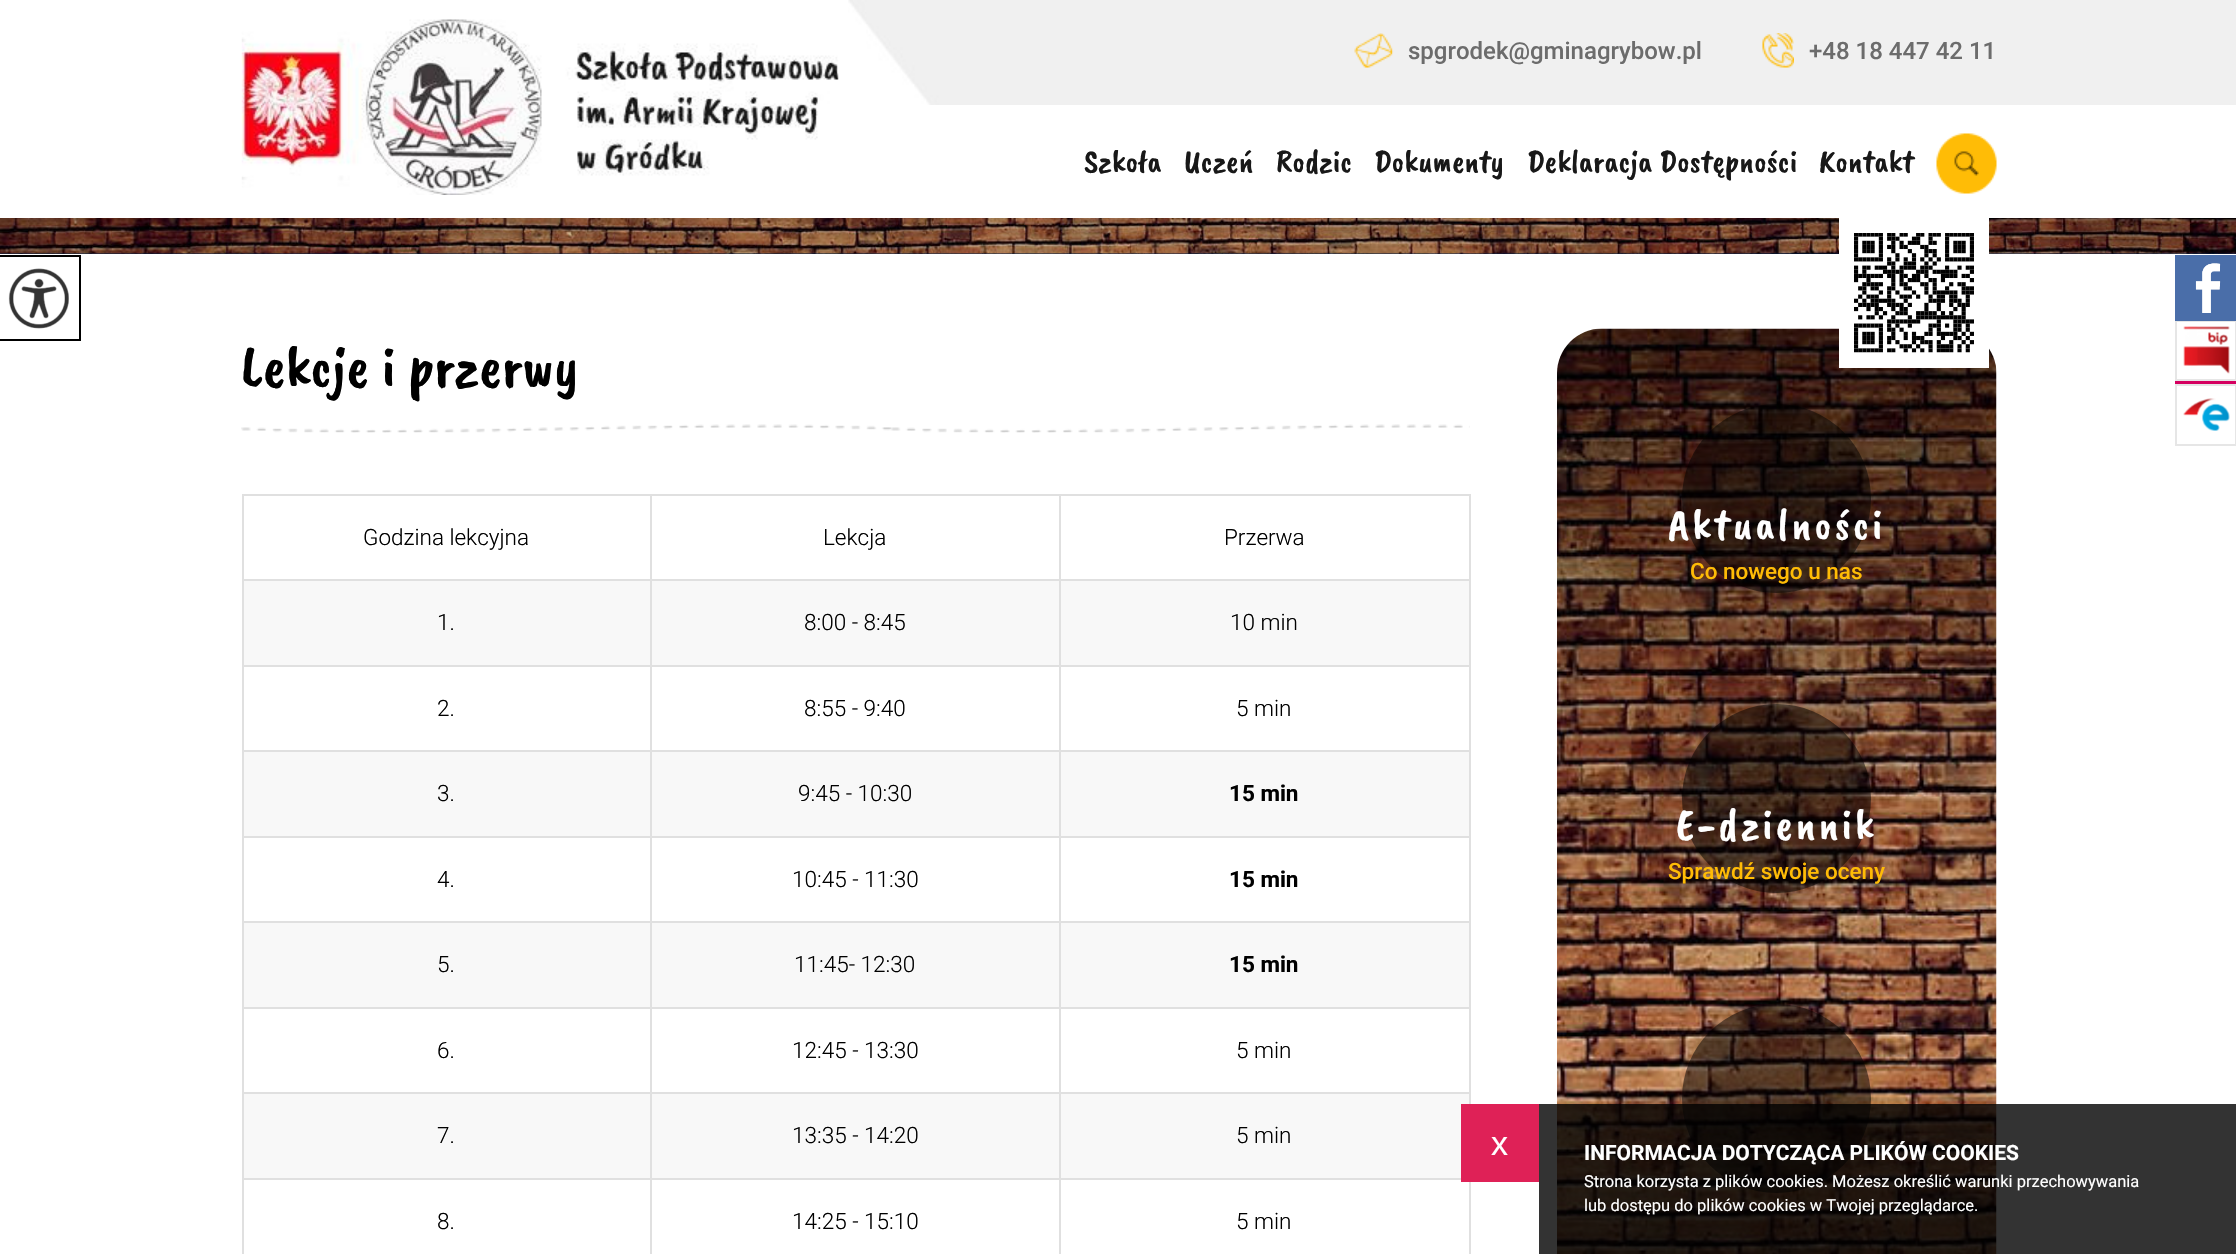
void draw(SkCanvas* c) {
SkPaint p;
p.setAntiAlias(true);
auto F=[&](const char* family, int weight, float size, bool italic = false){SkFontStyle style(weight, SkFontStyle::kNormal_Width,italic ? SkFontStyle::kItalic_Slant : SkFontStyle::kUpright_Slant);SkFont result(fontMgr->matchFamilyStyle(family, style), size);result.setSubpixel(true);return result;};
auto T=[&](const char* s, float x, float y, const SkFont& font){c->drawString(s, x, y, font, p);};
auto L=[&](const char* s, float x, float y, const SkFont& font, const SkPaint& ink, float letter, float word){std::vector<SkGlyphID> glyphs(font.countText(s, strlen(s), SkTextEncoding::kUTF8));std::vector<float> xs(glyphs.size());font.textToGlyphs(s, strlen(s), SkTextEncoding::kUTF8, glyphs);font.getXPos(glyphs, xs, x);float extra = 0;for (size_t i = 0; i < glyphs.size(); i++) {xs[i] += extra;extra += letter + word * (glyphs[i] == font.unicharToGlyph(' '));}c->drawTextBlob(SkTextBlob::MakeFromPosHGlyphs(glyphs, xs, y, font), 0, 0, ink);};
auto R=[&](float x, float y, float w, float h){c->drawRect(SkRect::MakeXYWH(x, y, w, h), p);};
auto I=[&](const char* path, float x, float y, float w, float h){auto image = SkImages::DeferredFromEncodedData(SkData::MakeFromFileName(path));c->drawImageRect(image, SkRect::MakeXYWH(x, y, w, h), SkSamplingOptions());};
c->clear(0xffffffff);
I("1.png",848,0,1388,105);
I("2.png",241,19,598,176);
I("3.png",1354,33,40,35);
auto f1 = F("Roboto",500,24);
p.setColor(0xff6c6c6c);
T("spgrodek@gminagrybow.pl",1408,59,f1);
I("4.png",1762,33,32,35);
T("+48 18 447 42 11",1809,59,f1);
auto f2 = F("Caveat Brush",400,33);
p.setColor(0xff181818);
T("Szkoła",1084,172,f2);
T("Uczeń",1184,172,f2);
T("Rodzic",1276,172,f2);
T("Dokumenty",1374,172,f2);
T("Deklaracja Dostępności",1527,172,f2);
T("Kontakt",1819,172,f2);
I("5.png",1936,133,61,61);
p.setColor(0xff011d42);
R(0,253,2236,1);
I("6.png",0,218,2236,36);
{
const SkColor colors[] = {0xf2000000,0x00000000};
const float stops[] = {0,1};
const SkPoint ends[] = {{1118,0}, {1118,254}};
p.setShader(SkGradientShader::MakeLinear(ends, colors, stops, 2, SkTileMode::kClamp));
p.setAlpha(255);
}
R(0,218,2236,30);
p.setStroke(true);
p.setStrokeWidth(2);
p.setShader(nullptr);
p.setColor(0xff000000);
c->drawRect(SkRect::MakeXYWH(-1,256,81,84),p);
I("7.png",8,268,61,61);
I("11.png",1557,328,440,926);
p.setStroke(false);
p.setColor(0xffffffff);
R(1839,218,150,150);
I("8.png",1854,233,120,120);
p.setStroke(true);
p.setColor(0xffe6e6e6);
c->drawRect(SkRect::MakeXYWH(2176,321,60,59),p);
I("9.png",2175,255,61,66);
I("10.png",241,424,1229,9);
auto f3 = F("Caveat Brush",400,60);
p.setStroke(false);
p.setColor(0xff000000);
T("Lekcje i przerwy",241,386,f3);
p.setColor(0xffe0e0e0);
R(1059,494,411,2);
R(1059,579,411,2);
p.setColor(0xfff8f8f8);
R(244,581,1225,84);
p.setColor(0xffe0e0e0);
R(1059,665,411,2);
R(1059,750,411,2);
p.setColor(0xfff8f8f8);
R(244,752,1225,84);
p.setColor(0xffe0e0e0);
R(1059,836,411,2);
R(1059,921,411,2);
p.setColor(0xfff8f8f8);
R(244,923,1225,84);
p.setColor(0xffe0e0e0);
R(1059,1007,411,2);
R(1059,1092,411,2);
p.setColor(0xfff8f8f8);
R(244,1094,1225,84);
p.setColor(0xffe0e0e0);
R(1059,1178,402,2);
R(1059,1178,2,76);
R(650,1178,411,2);
R(1059,1092,2,87);
R(650,1092,411,2);
R(1059,1007,2,87);
R(650,1007,411,2);
R(1059,921,2,87);
R(650,921,411,2);
R(1059,836,2,87);
R(650,836,411,2);
R(1059,750,2,87);
R(650,750,411,2);
R(1059,665,2,87);
R(650,665,411,2);
R(1059,579,2,87);
R(650,579,411,2);
R(1059,494,2,87);
R(650,494,411,2);
R(650,1178,2,76);
R(242,1178,409,2);
R(650,1092,2,87);
R(242,1092,409,2);
R(650,1007,2,87);
R(242,1007,409,2);
R(650,921,2,87);
R(242,921,409,2);
R(650,836,2,87);
R(242,836,409,2);
R(650,750,2,87);
R(242,750,409,2);
R(650,665,2,87);
R(242,665,409,2);
R(650,579,2,87);
R(242,579,409,2);
R(650,494,2,87);
R(242,494,409,2);
R(242,1178,2,76);
R(242,1092,2,87);
R(242,1007,2,87);
R(242,921,2,87);
R(242,836,2,87);
R(242,750,2,87);
R(242,665,2,87);
R(242,579,2,87);
R(242,494,2,87);
auto f4 = F("Roboto",300,22.5);
p.setColor(0xff000000);
T("Godzina lekcyjna",363,545,f4);
T("Lekcja",823,545,f4);
p.setColor(0xffe0e0e0);
R(1469,1092,2,12);
R(1469,1007,2,87);
R(1469,921,2,87);
R(1469,836,2,87);
R(1469,750,2,87);
R(1469,665,2,87);
R(1469,579,2,87);
R(1469,494,2,87);
p.setColor(0xff000000);
T("Przerwa",1224,545,f4);
T("1.",437,630,f4);
T("8:00 - 8:45",804,630,f4);
T("10 min",1230,630,f4);
T("2.",437,716,f4);
T("8:55 - 9:40",804,716,f4);
T("5 min",1236,716,f4);
T("3.",437,801,f4);
T("9:45 - 10:30",798,801,f4);
auto f5 = F("Roboto",700,22.5);
T("15 min",1229,801,f5);
T("4.",437,887,f4);
T("10:45 - 11:30",792,887,f4);
T("15 min",1229,887,f5);
T("5.",437,972,f4);
T("11:45- 12:30",794,972,f4);
T("15 min",1229,972,f5);
T("6.",437,1058,f4);
T("12:45 - 13:30",792,1058,f4);
T("5 min",1236,1058,f4);
T("7.",437,1143,f4);
T("13:35 - 14:20",792,1143,f4);
T("5 min",1236,1143,f4);
T("8.",437,1229,f4);
T("14:25 - 15:10",792,1229,f4);
p.setColor(0xffe0e0e0);
R(1469,1178,2,76);
p.setColor(0xff000000);
T("5 min",1236,1229,f4);
p.setColor(0x80000000);
c->drawCircle(1776.5,498.5,94.5,p);
auto f6 = F("Caveat Brush",400,45);
p.setColor(0xffffffff);
L("Aktualności",1668,539,f6,p,3,0);
auto f7 = F("Roboto",500,22.5);
p.setColor(0xffffbc06);
T("Co nowego u nas",1690,579,f7);
p.setColor(0x80000000);
c->drawCircle(1776.5,798.5,94.5,p);
p.setColor(0xffffffff);
L("E-dziennik",1676,839,f6,p,3,0);
p.setColor(0xffffbc06);
T("Sprawdź swoje oceny",1668,879,f7);
p.setColor(0x80000000);
c->drawCircle(1776.5,1098.5,94.5,p);
I("12.png",2183,326,47,48);
p.setStroke(true);
p.setColor(0xffe6e6e6);
c->drawRect(SkRect::MakeXYWH(2176,385,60,60),p);
I("13.png",2183,398,47,33);
I("14.png",2175,381,61,3);
p.setStroke(false);
p.setColor(0xcc000000);
R(1539,1104,697,150);
p.setColor(0xffdf2157);
R(1461,1104,78,78);
auto f8 = F("Liberation Sans",400,34);
p.setColor(0xffffffff);
T("x",1491,1155,f8);
auto f9 = F("Roboto",700,21);
T("INFORMACJA DOTYCZĄCA PLIKÓW COOKIES",1584,1160,f9);
auto f10 = F("Roboto",400,16.5);
T("Strona korzysta z plików cookies. Możesz określić warunki przechowywania",1584,1187,f10);
T("lub dostępu do plików cookies w Twojej przeglądarce.",1584,1211,f10);
}
